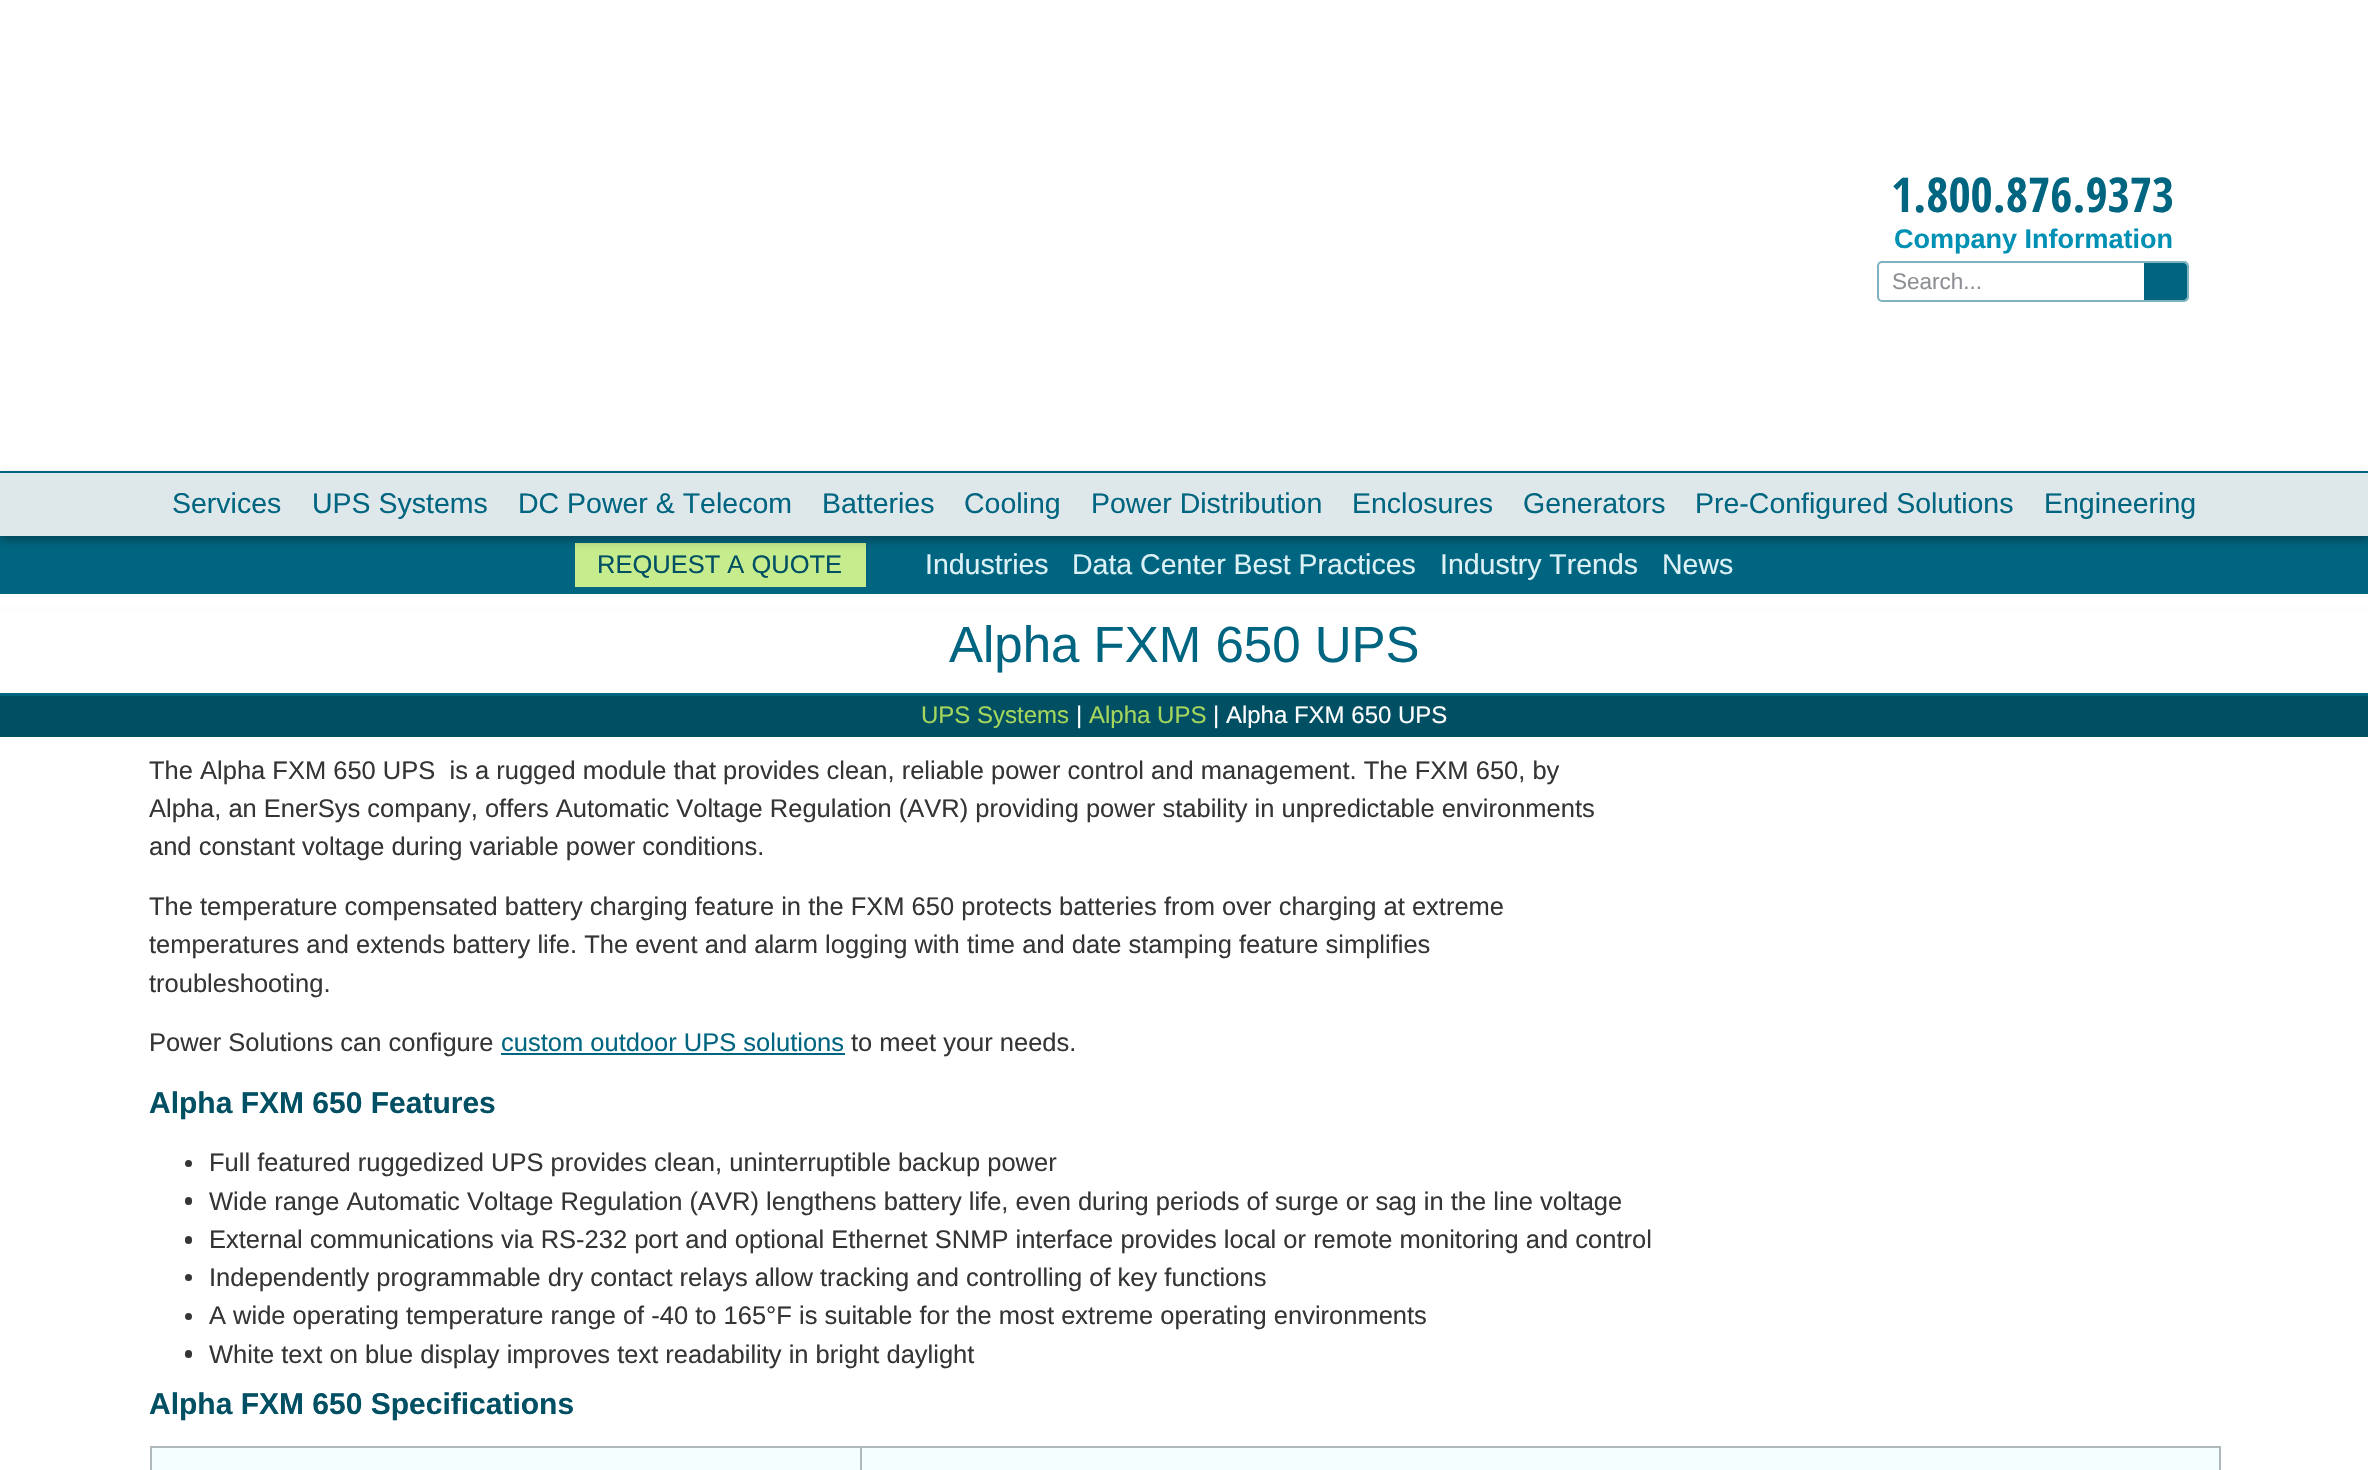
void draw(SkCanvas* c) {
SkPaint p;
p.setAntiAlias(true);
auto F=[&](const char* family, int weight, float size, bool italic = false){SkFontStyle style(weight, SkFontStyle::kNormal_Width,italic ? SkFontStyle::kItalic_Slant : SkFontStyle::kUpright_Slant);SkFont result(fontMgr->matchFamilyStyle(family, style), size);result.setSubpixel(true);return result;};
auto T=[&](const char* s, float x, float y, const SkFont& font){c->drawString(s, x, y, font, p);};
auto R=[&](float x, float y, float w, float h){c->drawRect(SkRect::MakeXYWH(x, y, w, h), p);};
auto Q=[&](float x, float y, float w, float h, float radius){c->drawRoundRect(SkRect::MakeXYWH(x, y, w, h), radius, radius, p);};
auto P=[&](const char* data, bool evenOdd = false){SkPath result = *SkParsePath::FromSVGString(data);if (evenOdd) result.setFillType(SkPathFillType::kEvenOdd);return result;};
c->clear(0xffffffff);
auto f1 = F("Open Sans Condensed",700,48);
p.setColor(0xff006580);
T("1.800.876.9373",1891,212,f1);
auto f2 = F("Liberation Sans",700,27);
p.setColor(0xff0090b4);
T("Company Information",1894,248,f2);
p.setStroke(true);
p.setStrokeWidth(2);
p.setColor(0xff7fb2bf);
c->drawRoundRect(SkRect::MakeXYWH(1878,262,310,39),4,4,p);
auto f3 = F("Liberation Sans",400,22.5);
p.setStroke(false);
p.setColor(0xff8c8f93);
T("Search...",1892,289,f3);
p.setColor(0xff006580);
c->drawPath(P("M2144 263h40c1.5 0 3 1.5 3 3v31c0 1.5-1.5 3-3 3h-40z"),p);
p.setColor(0x52000000);
p.setMaskFilter(SkMaskFilter::MakeBlur(kNormal_SkBlurStyle, 4.5));
c->drawRect(SkRect::MakeXYWH(0,540,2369,59),p);
p.setMaskFilter(nullptr);
p.setColor(0xff006580);
R(0,536,2368,58);
p.setColor(0xffc6ec8d);
R(575,543,291,44);
c->save();
c->clipPath(P("M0 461h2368v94h-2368zm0 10h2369v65h-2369z",true),true);
p.setColor(0x52000000);
p.setMaskFilter(SkMaskFilter::MakeBlur(kNormal_SkBlurStyle, 4.5));
c->drawRect(SkRect::MakeXYWH(0,476,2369,64),p);
p.setMaskFilter(nullptr);
c->restore();
p.setColor(0xeddbe5e7);
R(0,473,2368,63);
p.setColor(0xff006580);
R(0,471,2368,2);
auto f4 = F("Liberation Sans",400,28.5);
T("Services",172,513,f4);
T("UPS Systems",312,513,f4);
T("DC Power & Telecom",518,513,f4);
T("Batteries",822,513,f4);
T("Cooling",964,513,f4);
T("Power Distribution",1091,513,f4);
T("Enclosures",1352,513,f4);
T("Generators",1523,513,f4);
T("Pre-Configured Solutions",1695,513,f4);
T("Engineering",2044,513,f4);
auto f5 = F("Liberation Sans",400,25.5);
p.setColor(0xff004f63);
T("REQUEST A QUOTE",597,573,f5);
p.setColor(0xffdcf1f6);
T("Industries",925,574,f4);
T("Data Center Best Practices",1072,574,f4);
T("Industry Trends",1440,574,f4);
T("News",1662,574,f4);
p.setColor(0xffffffff);
R(0,594,2368,13);
p.setColor(0xff006580);
R(0,693,2368,3);
auto f6 = F("Liberation Sans",400,51);
T("Alpha FXM 650 UPS",949,662,f6);
p.setColor(0xff004f63);
R(0,696,2368,41);
auto f7 = F("Liberation Sans",400,24);
p.setColor(0xffa4d55d);
T("UPS Systems",921,723,f7);
p.setColor(0xffffffff);
T("|",1076,723,f7);
p.setColor(0xffa4d55d);
T("Alpha UPS",1089,723,f7);
p.setColor(0xffffffff);
T("| Alpha FXM 650 UPS",1213,723,f7);
p.setColor(0xff353535);
T("The Alpha FXM 650 UPS  is a rugged module that provides clean, reliable power control and management. The FXM 650, by",149,779,f5);
T("Alpha, an EnerSys company, offers Automatic Voltage Regulation (AVR) providing power stability in unpredictable environments",149,817,f5);
T("and constant voltage during variable power conditions.",149,855,f5);
T("The temperature compensated battery charging feature in the FXM 650 protects batteries from over charging at extreme",149,915,f5);
T("temperatures and extends battery life. The event and alarm logging with time and date stamping feature simplifies",149,953,f5);
T("troubleshooting.",149,992,f5);
T("Power Solutions can configure",149,1051,f5);
p.setColor(0xff006580);
T("custom outdoor UPS solutions",501,1051,f5);
R(501,1053,344,2);
p.setColor(0xff353535);
T("to meet your needs.",851,1051,f5);
auto f8 = F("Liberation Sans",700,30);
p.setColor(0xff004f63);
T("Alpha FXM 650 Features",149,1113,f8);
p.setColor(0xff353535);
c->drawCircle(188.5,1163.5,3.5,p);
T("Full featured ruggedized UPS provides clean, uninterruptible backup power",209,1171,f5);
Q(185,1197,7,8,3.5);
T("Wide range Automatic Voltage Regulation (AVR) lengthens battery life, even during periods of surge or sag in the line voltage",209,1210,f5);
Q(185,1236,7,8,3.5);
T("External communications via RS-232 port and optional Ethernet SNMP interface provides local or remote monitoring and control",209,1248,f5);
c->drawCircle(188.5,1277.5,3.5,p);
T("Independently programmable dry contact relays allow tracking and controlling of key functions",209,1286,f5);
c->drawCircle(188.5,1316.5,3.5,p);
T("A wide operating temperature range of -40 to 165°F is suitable for the most extreme operating environments",209,1324,f5);
Q(185,1350,7,8,3.5);
T("White text on blue display improves text readability in bright daylight",209,1363,f5);
p.setColor(0xff004f63);
T("Alpha FXM 650 Specifications",149,1414,f8);
p.setColor(0xfff4fdff);
R(152,1448,708,22);
p.setColor(0xffafb9bc);
R(860,1446,1360,2);
R(860,1446,2,24);
R(150,1446,711,2);
R(150,1446,2,24);
p.setColor(0xfff4fdff);
R(862,1448,1357,22);
p.setColor(0xffafb9bc);
R(2219,1446,2,24);
}
